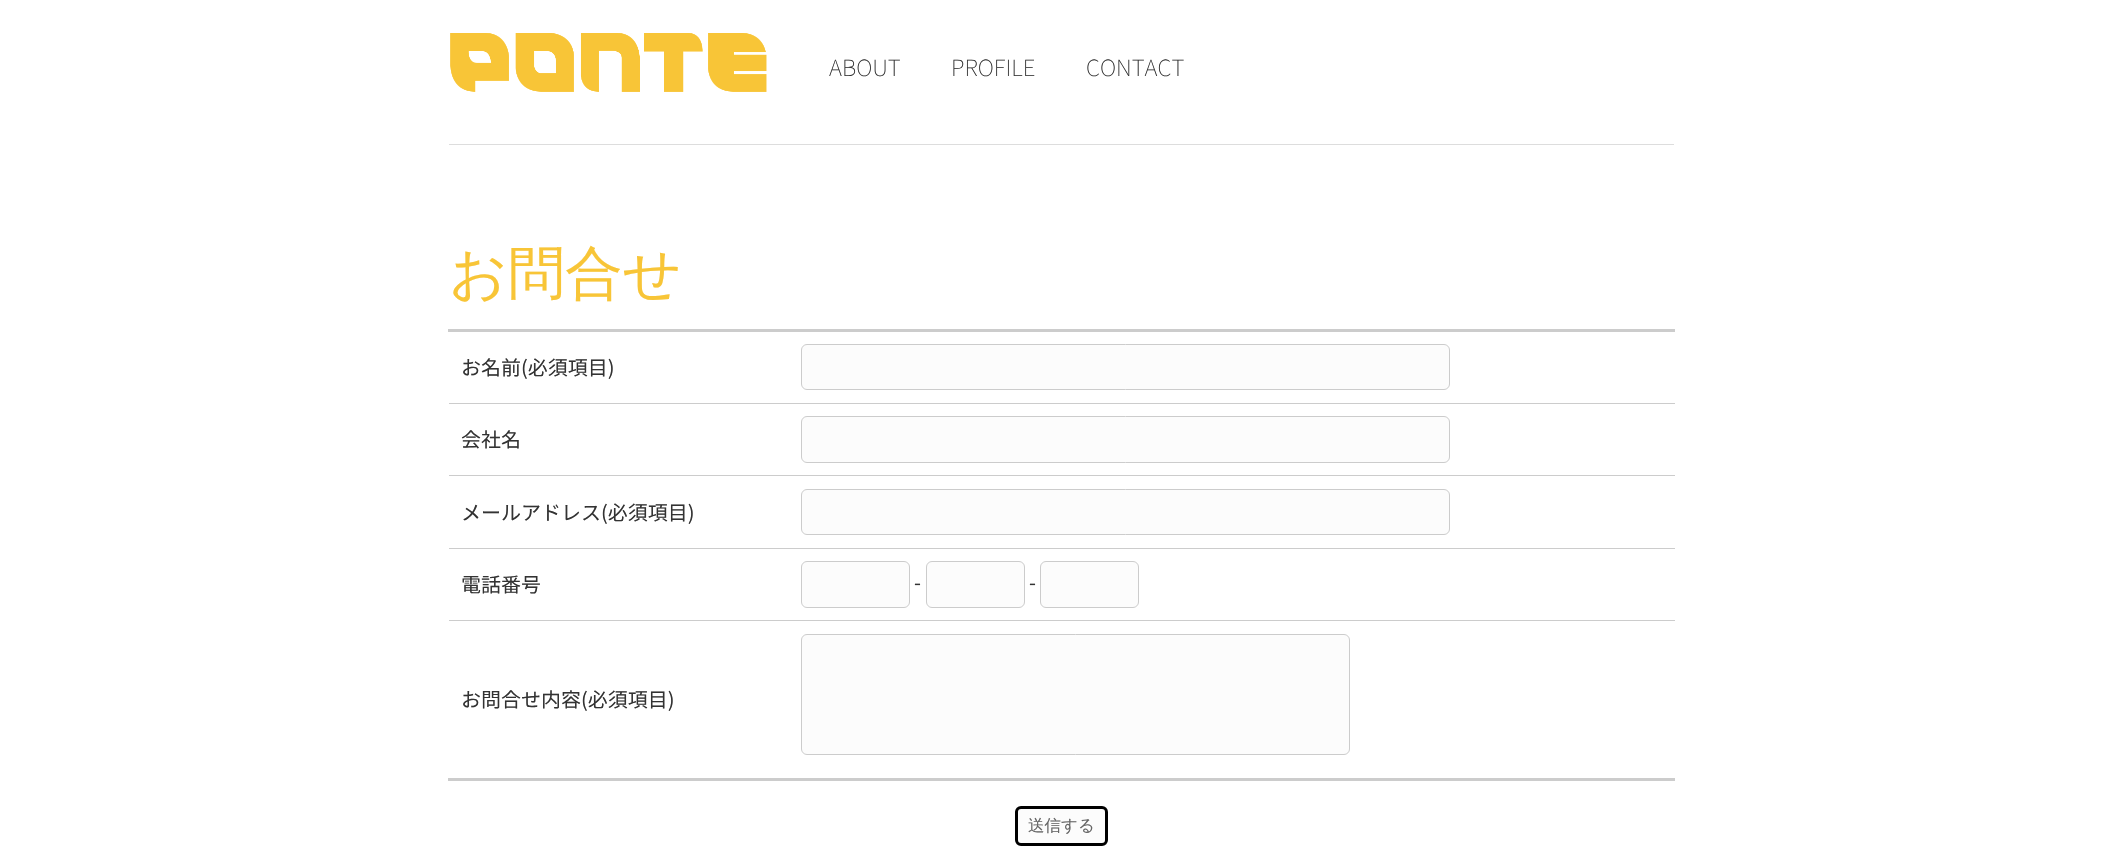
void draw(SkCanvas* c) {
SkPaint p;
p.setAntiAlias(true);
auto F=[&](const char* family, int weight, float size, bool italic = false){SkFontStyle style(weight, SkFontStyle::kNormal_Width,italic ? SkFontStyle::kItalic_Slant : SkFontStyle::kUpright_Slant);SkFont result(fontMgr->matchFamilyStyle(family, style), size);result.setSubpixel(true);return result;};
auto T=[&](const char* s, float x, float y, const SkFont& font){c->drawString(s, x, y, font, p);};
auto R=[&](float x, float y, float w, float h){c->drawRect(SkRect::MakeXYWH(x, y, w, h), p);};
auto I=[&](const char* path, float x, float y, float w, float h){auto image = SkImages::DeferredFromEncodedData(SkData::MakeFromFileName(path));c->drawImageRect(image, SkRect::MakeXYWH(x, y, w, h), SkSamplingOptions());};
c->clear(0xffffffff);
I("1.png",450,33,317,59);
auto f1 = F("Noto Sans JP",100,22.5);
p.setColor(0xff333333);
T("ABOUT",829,76,f1);
T("PROFILE",951,76,f1);
T("CONTACT",1086,76,f1);
p.setColor(0xffdddddd);
R(449,144,1225,1);
auto f2 = F("WenQuanYi Zen Hei",500,57.5);
p.setColor(0xfff8c537);
T("お問合せ",449,293,f2);
p.setColor(0xffcccccc);
R(448,329,1227,3);
auto f3 = F("Noto Sans JP",400,20);
p.setColor(0xff333333);
T("お名前(必須項目)",461,375,f3);
p.setColor(0xfffcfcfc);
c->drawRoundRect(SkRect::MakeXYWH(801.5,344.5,648,45),5.5,5.5,p);
p.setStroke(true);
p.setStrokeWidth(1);
p.setColor(0xffcccccc);
c->drawRoundRect(SkRect::MakeXYWH(801.5,344.5,648,45),5.5,5.5,p);
p.setStroke(false);
R(449,403,1226,1);
p.setColor(0xff333333);
T("会社名",461,447,f3);
p.setColor(0xfffcfcfc);
c->drawRoundRect(SkRect::MakeXYWH(801.5,416.5,648,46),5.5,5.5,p);
p.setStroke(true);
p.setColor(0xffcccccc);
c->drawRoundRect(SkRect::MakeXYWH(801.5,416.5,648,46),5.5,5.5,p);
p.setStroke(false);
R(449,475,1226,1);
p.setColor(0xff333333);
T("メールアドレス(必須項目)",461,520,f3);
p.setColor(0xfffcfcfc);
c->drawRoundRect(SkRect::MakeXYWH(801.5,489.5,648,45),5.5,5.5,p);
p.setStroke(true);
p.setColor(0xffcccccc);
c->drawRoundRect(SkRect::MakeXYWH(801.5,489.5,648,45),5.5,5.5,p);
p.setStroke(false);
R(449,548,1226,1);
p.setColor(0xff333333);
T("電話番号",461,592,f3);
p.setColor(0xfffcfcfc);
c->drawRoundRect(SkRect::MakeXYWH(801.5,561.5,108,46),5.5,5.5,p);
p.setStroke(true);
p.setColor(0xffcccccc);
c->drawRoundRect(SkRect::MakeXYWH(801.5,561.5,108,46),5.5,5.5,p);
p.setStroke(false);
p.setColor(0xff333333);
T("-",914,590,f3);
p.setColor(0xfffcfcfc);
c->drawRoundRect(SkRect::MakeXYWH(926.5,561.5,98,46),5.5,5.5,p);
p.setStroke(true);
p.setColor(0xffcccccc);
c->drawRoundRect(SkRect::MakeXYWH(926.5,561.5,98,46),5.5,5.5,p);
p.setStroke(false);
p.setColor(0xff333333);
T("-",1029,590,f3);
p.setColor(0xfffcfcfc);
c->drawRoundRect(SkRect::MakeXYWH(1040.5,561.5,98,46),5.5,5.5,p);
p.setStroke(true);
p.setColor(0xffcccccc);
c->drawRoundRect(SkRect::MakeXYWH(1040.5,561.5,98,46),5.5,5.5,p);
p.setStroke(false);
R(449,620,1226,1);
R(448,778,1227,3);
p.setColor(0xff333333);
T("お問合せ内容(必須項目)",461,707,f3);
p.setColor(0xfffcfcfc);
c->drawRoundRect(SkRect::MakeXYWH(801.5,634.5,548,120),5.5,5.5,p);
p.setStroke(true);
p.setColor(0xffcccccc);
c->drawRoundRect(SkRect::MakeXYWH(801.5,634.5,548,120),5.5,5.5,p);
p.setStroke(false);
p.setColor(0xfffcfcfc);
c->drawRoundRect(SkRect::MakeXYWH(1016.5,807.5,90,37),4.5,4.5,p);
p.setStroke(true);
p.setStrokeWidth(3);
p.setColor(0xff000000);
c->drawRoundRect(SkRect::MakeXYWH(1016.5,807.5,90,37),4.5,4.5,p);
auto f4 = F("WenQuanYi Zen Hei",500,16.5);
p.setStroke(false);
p.setColor(0xff666666);
T("送信する",1028,831,f4);
}
